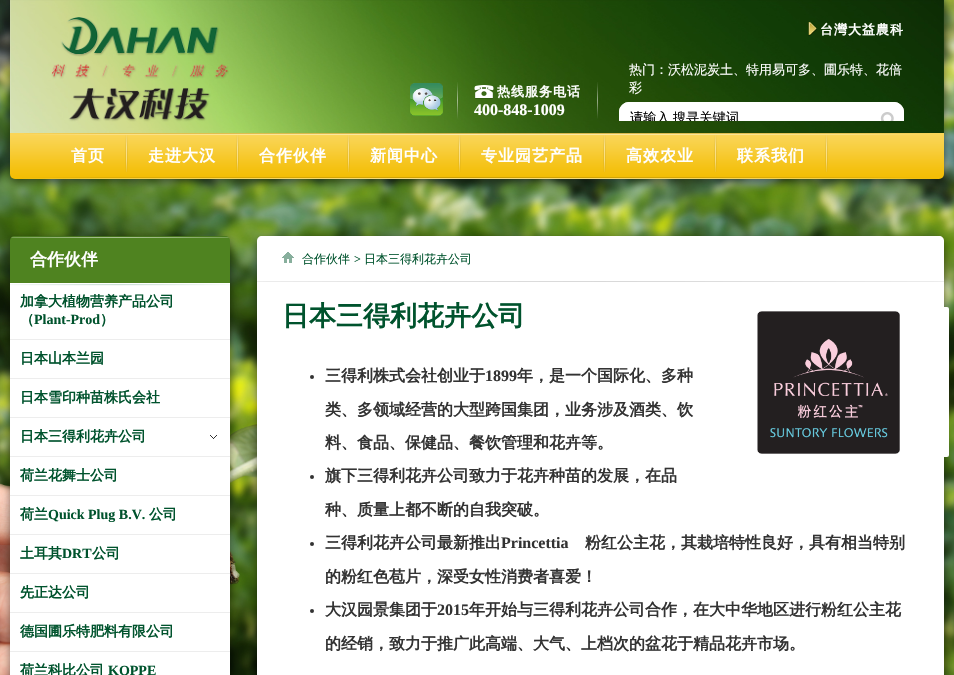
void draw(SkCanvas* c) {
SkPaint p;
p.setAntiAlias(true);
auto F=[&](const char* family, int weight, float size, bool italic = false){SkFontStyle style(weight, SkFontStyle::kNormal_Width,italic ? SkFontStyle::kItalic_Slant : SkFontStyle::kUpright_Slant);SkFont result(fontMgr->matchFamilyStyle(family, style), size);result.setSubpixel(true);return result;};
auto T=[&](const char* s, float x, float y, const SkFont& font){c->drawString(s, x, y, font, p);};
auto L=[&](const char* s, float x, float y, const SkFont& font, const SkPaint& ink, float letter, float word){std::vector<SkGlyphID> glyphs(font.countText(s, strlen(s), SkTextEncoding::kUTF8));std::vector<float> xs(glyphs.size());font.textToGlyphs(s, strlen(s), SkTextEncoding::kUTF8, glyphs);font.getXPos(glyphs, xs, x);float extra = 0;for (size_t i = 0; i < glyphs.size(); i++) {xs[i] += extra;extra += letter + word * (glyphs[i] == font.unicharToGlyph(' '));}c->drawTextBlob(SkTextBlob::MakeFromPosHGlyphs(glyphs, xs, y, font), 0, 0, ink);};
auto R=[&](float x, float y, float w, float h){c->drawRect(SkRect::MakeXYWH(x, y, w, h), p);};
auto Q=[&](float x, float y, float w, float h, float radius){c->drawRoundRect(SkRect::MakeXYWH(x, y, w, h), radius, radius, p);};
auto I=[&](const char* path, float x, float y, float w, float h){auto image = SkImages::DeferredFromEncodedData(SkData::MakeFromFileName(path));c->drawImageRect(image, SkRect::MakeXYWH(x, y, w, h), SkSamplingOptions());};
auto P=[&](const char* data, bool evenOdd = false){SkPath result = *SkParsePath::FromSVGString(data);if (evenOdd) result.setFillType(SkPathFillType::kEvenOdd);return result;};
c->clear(0xffffffff);
I("1.png",0,0,954,675);
I("2.png",0,424,257,251);
p.setColor(0x80000000);
p.setMaskFilter(SkMaskFilter::MakeBlur(kNormal_SkBlurStyle, 4.5));
c->drawRoundRect(SkRect::MakeXYWH(10,3,934,179),5,5,p);
p.setMaskFilter(nullptr);
I("3.png",10,0,934,133);
I("4.png",51,17,178,105);
I("5.png",808,22,9,14);
auto f1 = F("WenQuanYi Zen Hei",700,13);
p.setColor(0xffffffff);
L("台灣大益農科",820,34,f1,p,1,0);
I("6.png",410,83,33,33);
I("7.png",456,82,3,37);
I("8.png",474,85,20,14);
L("热线服务电话",497,96,f1,p,1,0);
auto f2 = F("Liberation Serif",700,16);
T("400-848-1009",474,115,f2);
I("9.png",597,82,1,37);
auto f3 = F("WenQuanYi Zen Hei",500,13);
T("热门：沃松泥炭土、特用易可多、圃乐特、花倍",629,74,f3);
T("彩",629,92,f3);
c->drawPath(P("M629 102h265c5.5 0 10 4.5 10 10v9h-285v-9c0-5.5 4.5-10 10-10z"),p);
c->save();
c->clipRect(SkRect::MakeXYWH(619,56,285,65));
p.setStroke(true);
p.setStrokeWidth(1);
c->drawRoundRect(SkRect::MakeXYWH(619.5,102.5,284,34),9.5,9.5,p);
c->restore();
c->save();
c->clipRect(SkRect::MakeXYWH(630,109,190,12));
auto f4 = F("WenQuanYi Zen Hei",500,13.25);
p.setStroke(false);
p.setColor(0xff000000);
L("请输入 搜寻关键词",630,122,f4,p,0,-1);
c->restore();
I("10.png",880,112,14,9);
I("11.png",10,133,934,46);
I("12.png",24,133,906,2);
I("13.png",125,135,3,37);
auto f5 = F("WenQuanYi Zen Hei",700,16);
p.setColor(0xffffffff);
L("首页",71,161,f5,p,1,0);
I("13.png",236,135,3,37);
L("走进大汉",148,161,f5,p,1,0);
I("13.png",347,135,3,37);
L("合作伙伴",259,161,f5,p,1,0);
I("13.png",458,135,3,37);
L("新闻中心",370,161,f5,p,1,0);
I("13.png",603,135,3,37);
L("专业园艺产品",481,161,f5,p,1,0);
I("13.png",714,135,3,37);
L("高效农业",626,161,f5,p,1,0);
I("13.png",825,135,3,37);
L("联系我们",737,161,f5,p,1,0);
I("14.png",22,177,909,2);
p.setColor(0x80000000);
p.setMaskFilter(SkMaskFilter::MakeBlur(kNormal_SkBlurStyle, 4.5));
c->drawRoundRect(SkRect::MakeXYWH(10,239,220,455),5,5,p);
p.setMaskFilter(nullptr);
p.setColor(0xff4f8320);
c->drawPath(P("M15 236h210c3 0 5 2 5 5v42h-220v-42c0-3 2-5 5-5z"),p);
I("15.png",11,236,218,2);
auto f6 = F("WenQuanYi Zen Hei",700,17);
p.setColor(0xffffffff);
T("合作伙伴",30,265,f6);
R(10,283,220,392);
I("16.png",10,284,220,2);
p.setColor(0xffededed);
R(10,339,220,1);
auto f7 = F("WenQuanYi Zen Hei",700,14);
p.setColor(0xff00532d);
T("加拿大植物营养产品公司",20,306,f7);
T("（",20,324,f7);
auto f8 = F("Liberation Serif",700,14);
T("Plant-Prod",34,324,f8);
T("）",100,324,f7);
p.setColor(0xffededed);
R(10,378,220,1);
p.setColor(0xff00532d);
T("日本山本兰园",20,363,f7);
p.setColor(0xffededed);
R(10,417,220,1);
p.setColor(0xff00532d);
T("日本雪印种苗株氏会社",20,402,f7);
I("17.png",210,435,7,4);
p.setColor(0xffededed);
R(10,456,220,1);
p.setColor(0xff00532d);
T("日本三得利花卉公司",20,441,f7);
p.setColor(0xffededed);
R(10,495,220,1);
p.setColor(0xff00532d);
T("荷兰花舞士公司",20,480,f7);
p.setColor(0xffededed);
R(10,534,220,1);
p.setColor(0xff00532d);
T("荷兰",20,519,f7);
T("Quick Plug B.V.",48,519,f8);
T("公司",149,519,f7);
p.setColor(0xffededed);
R(10,573,220,1);
p.setColor(0xff00532d);
T("土耳其",20,558,f7);
T("DRT",62,558,f8);
T("公司",92,558,f7);
p.setColor(0xffededed);
R(10,612,220,1);
p.setColor(0xff00532d);
T("先正达公司",20,597,f7);
p.setColor(0xffededed);
R(10,651,220,1);
p.setColor(0xff00532d);
T("德国圃乐特肥料有限公司",20,636,f7);
T("荷兰科比公司",20,675,f7);
T("KOPPE",108,675,f8);
p.setColor(0x80000000);
p.setMaskFilter(SkMaskFilter::MakeBlur(kNormal_SkBlurStyle, 4.5));
c->drawRoundRect(SkRect::MakeXYWH(257,239,687,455),5,5,p);
p.setMaskFilter(nullptr);
p.setColor(0xffffffff);
c->drawPath(P("M262 236h677c3 0 5 2 5 5v434h-687v-434c0-3 2-5 5-5z"),p);
I("18.png",257,281,687,1);
I("19.png",282,252,12,11);
auto f9 = F("WenQuanYi Zen Hei",500,12);
p.setColor(0xff00532d);
T("合作伙伴",302,263,f9);
auto f10 = F("Liberation Serif",400,12);
T(">",354,263,f10);
T("日本三得利花卉公司",364,263,f9);
auto f11 = F("WenQuanYi Zen Hei",700,27);
T("日本三得利花卉公司",282,325,f11);
p.setColor(0xffffffff);
Q(707,307,242,150,2);
I("20.png",757,311,143,143);
p.setColor(0xff333333);
c->drawCircle(312,377,2,p);
T("三得利株式会社创业于",325,381,f5);
T("1899",485,381,f2);
T("年，是一个国际化、多种",517,381,f5);
T("类、多领域经营的大型跨国集团，业务涉及酒类、饮",325,415,f5);
T("料、食品、保健品、餐饮管理和花卉等。",325,448,f5);
c->drawCircle(312,477,2,p);
T("旗下三得利花卉公司致力于花卉种苗的发展，在品",325,481,f5);
T("种、质量上都不断的自我突破。",325,515,f5);
c->drawCircle(312,544,2,p);
T("三得利花卉公司最新推出",325,548,f5);
T("Princettia",501,548,f2);
T("粉红公主花，其栽培特性良好，具有相当特别",585,548,f5);
T("的粉红色苞片，深受女性消费者喜爱！",325,582,f5);
c->drawCircle(312,611,2,p);
T("大汉园景集团于",325,615,f5);
T("2015",437,615,f2);
T("年开始与三得利花卉公司合作，在大中华地区进行粉红公主花",469,615,f5);
T("的经销，致力于推广此高端、大气、上档次的盆花于精品花卉市场。",325,649,f5);
}
